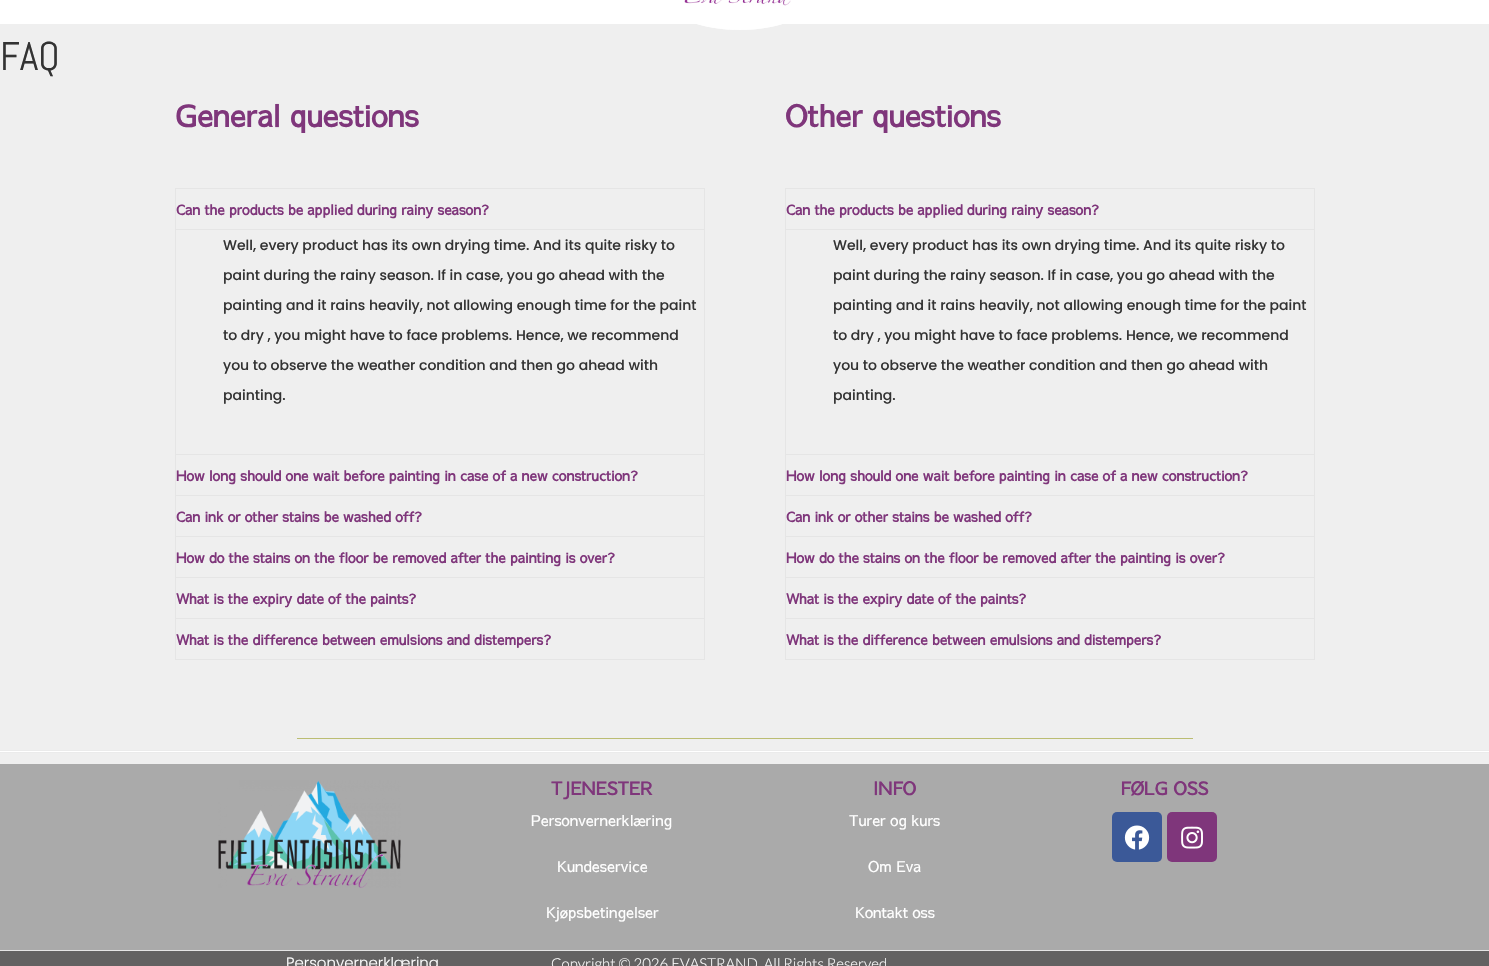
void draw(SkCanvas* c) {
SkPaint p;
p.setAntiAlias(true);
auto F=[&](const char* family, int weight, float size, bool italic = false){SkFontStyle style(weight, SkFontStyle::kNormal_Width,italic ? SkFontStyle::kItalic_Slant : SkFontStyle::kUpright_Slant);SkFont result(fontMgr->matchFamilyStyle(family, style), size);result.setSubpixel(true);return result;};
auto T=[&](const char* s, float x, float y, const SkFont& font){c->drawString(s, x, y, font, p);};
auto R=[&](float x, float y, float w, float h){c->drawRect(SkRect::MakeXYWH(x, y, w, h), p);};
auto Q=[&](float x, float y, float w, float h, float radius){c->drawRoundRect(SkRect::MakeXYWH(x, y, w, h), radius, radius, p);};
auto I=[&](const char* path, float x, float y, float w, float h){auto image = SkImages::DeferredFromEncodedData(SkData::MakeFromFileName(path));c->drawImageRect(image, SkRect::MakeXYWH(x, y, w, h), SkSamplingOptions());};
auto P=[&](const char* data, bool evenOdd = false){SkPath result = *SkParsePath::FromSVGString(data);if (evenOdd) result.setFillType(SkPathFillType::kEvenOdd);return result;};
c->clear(0xffefefef);
p.setColor(0xffffffff);
R(0,0,1489,24);
p.setStroke(true);
p.setStrokeWidth(1);
c->drawPath(P("M640.5-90.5h198v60c0 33-44.5 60-99 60c-54.5 0-99-27-99-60z"),p);
p.setStroke(false);
c->drawPath(P("M640-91h199v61c0 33-45 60-99 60c-55 0-100-27-100-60z"),p);
I("1.png",684,0,107,6);
auto f1 = F("Abel",400,40);
p.setColor(0xff333333);
T("FAQ",0,70,f1);
auto f2 = F("Sawarabi Gothic",700,30);
p.setColor(0xff7f367b);
T("General questions",175,127,f2);
p.setStroke(true);
p.setColor(0xffe5e5e5);
c->drawRect(SkRect::MakeXYWH(175.5,188.5,529,266),p);
auto f3 = F("Sawarabi Gothic",700,14);
p.setStroke(false);
p.setColor(0xff7f367b);
T("Can the products be applied during rainy season?",176,215,f3);
p.setColor(0xffe5e5e5);
R(176,229,528,1);
auto f4 = F("Poppins",500,14);
p.setColor(0xff333333);
T("Well, every product has its own drying time. And its quite risky to",223,250,f4);
T("paint during the rainy season. If in case, you go ahead with the",223,280,f4);
T("painting and it rains heavily, not allowing enough time for the paint",223,310,f4);
T("to dry , you might have to face problems. Hence, we recommend",223,340,f4);
T("you to observe the weather condition and then go ahead with",223,370,f4);
T("painting.",223,400,f4);
p.setColor(0xffe5e5e5);
R(704,455,1,205);
R(175,495,530,1);
R(175,455,1,41);
p.setColor(0xff7f367b);
T("How long should one wait before painting in case of a new construction?",176,481,f3);
p.setColor(0xffe5e5e5);
R(175,536,530,1);
R(175,496,1,41);
p.setColor(0xff7f367b);
T("Can ink or other stains be washed off?",176,522,f3);
p.setColor(0xffe5e5e5);
R(175,577,530,1);
R(175,537,1,41);
p.setColor(0xff7f367b);
T("How do the stains on the floor be removed after the painting is over?",176,563,f3);
p.setColor(0xffe5e5e5);
R(175,618,530,1);
R(175,578,1,41);
p.setColor(0xff7f367b);
T("What is the expiry date of the paints?",176,604,f3);
p.setColor(0xffe5e5e5);
R(175,659,530,1);
R(175,619,1,41);
p.setColor(0xff7f367b);
T("What is the difference between emulsions and distempers?",176,645,f3);
T("Other questions",785,127,f2);
p.setStroke(true);
p.setColor(0xffe5e5e5);
c->drawRect(SkRect::MakeXYWH(785.5,188.5,529,266),p);
p.setStroke(false);
p.setColor(0xff7f367b);
T("Can the products be applied during rainy season?",786,215,f3);
p.setColor(0xffe5e5e5);
R(786,229,528,1);
p.setColor(0xff333333);
T("Well, every product has its own drying time. And its quite risky to",833,250,f4);
T("paint during the rainy season. If in case, you go ahead with the",833,280,f4);
T("painting and it rains heavily, not allowing enough time for the paint",833,310,f4);
T("to dry , you might have to face problems. Hence, we recommend",833,340,f4);
T("you to observe the weather condition and then go ahead with",833,370,f4);
T("painting.",833,400,f4);
p.setColor(0xffe5e5e5);
R(1314,455,1,205);
R(785,495,530,1);
R(785,455,1,41);
p.setColor(0xff7f367b);
T("How long should one wait before painting in case of a new construction?",786,481,f3);
p.setColor(0xffe5e5e5);
R(785,536,530,1);
R(785,496,1,41);
p.setColor(0xff7f367b);
T("Can ink or other stains be washed off?",786,522,f3);
p.setColor(0xffe5e5e5);
R(785,577,530,1);
R(785,537,1,41);
p.setColor(0xff7f367b);
T("How do the stains on the floor be removed after the painting is over?",786,563,f3);
p.setColor(0xffe5e5e5);
R(785,618,530,1);
R(785,578,1,41);
p.setColor(0xff7f367b);
T("What is the expiry date of the paints?",786,604,f3);
p.setColor(0xffe5e5e5);
R(785,659,530,1);
R(785,619,1,41);
p.setColor(0xff7f367b);
T("What is the difference between emulsions and distempers?",786,645,f3);
p.setColor(0xffffffff);
R(0,751,1489,1);
p.setColor(0xffebebeb);
R(0,750,1489,1);
R(0,752,1489,1);
p.setColor(0xffbbbd73);
R(297,738,896,1);
p.setColor(0xffaaaaaa);
R(0,764,1489,186);
p.setColor(0xffe5e5e5);
R(0,950,1489,1);
I("2.png",218,780,183,108);
auto f5 = F("Sawarabi Gothic",700,18);
p.setColor(0xff7f367b);
T("TJENESTER",551,795,f5);
auto f6 = F("Sawarabi Gothic",400,15);
p.setColor(0xffffffff);
T("Personvernerklæring",531,826,f6);
T("Kundeservice",557,872,f6);
T("Kjøpsbetingelser",546,918,f6);
p.setColor(0xff7f367b);
T("INFO",873,795,f5);
p.setColor(0xffffffff);
T("Turer og kurs",849,826,f6);
T("Om Eva",868,872,f6);
T("Kontakt oss",855,918,f6);
p.setColor(0xff7f367b);
T("FØLG OSS",1120,795,f5);
p.setColor(0xff3b5998);
Q(1112,812,50,50,5);
I("3.png",1124,825,26,25);
p.setColor(0xff7f367b);
Q(1167,812,50,50,5);
I("4.png",1181,826,22,23);
p.setColor(0xff636262);
R(0,951,1489,15);
auto f7 = F("Poppins",300,15);
p.setColor(0xffffffff);
T("Personvernerklæring",286,968,f7);
auto f8 = F("Lato",300,15);
T("Copyright © 2026 EVASTRAND. All Rights Reserved",551,969,f8);
}
